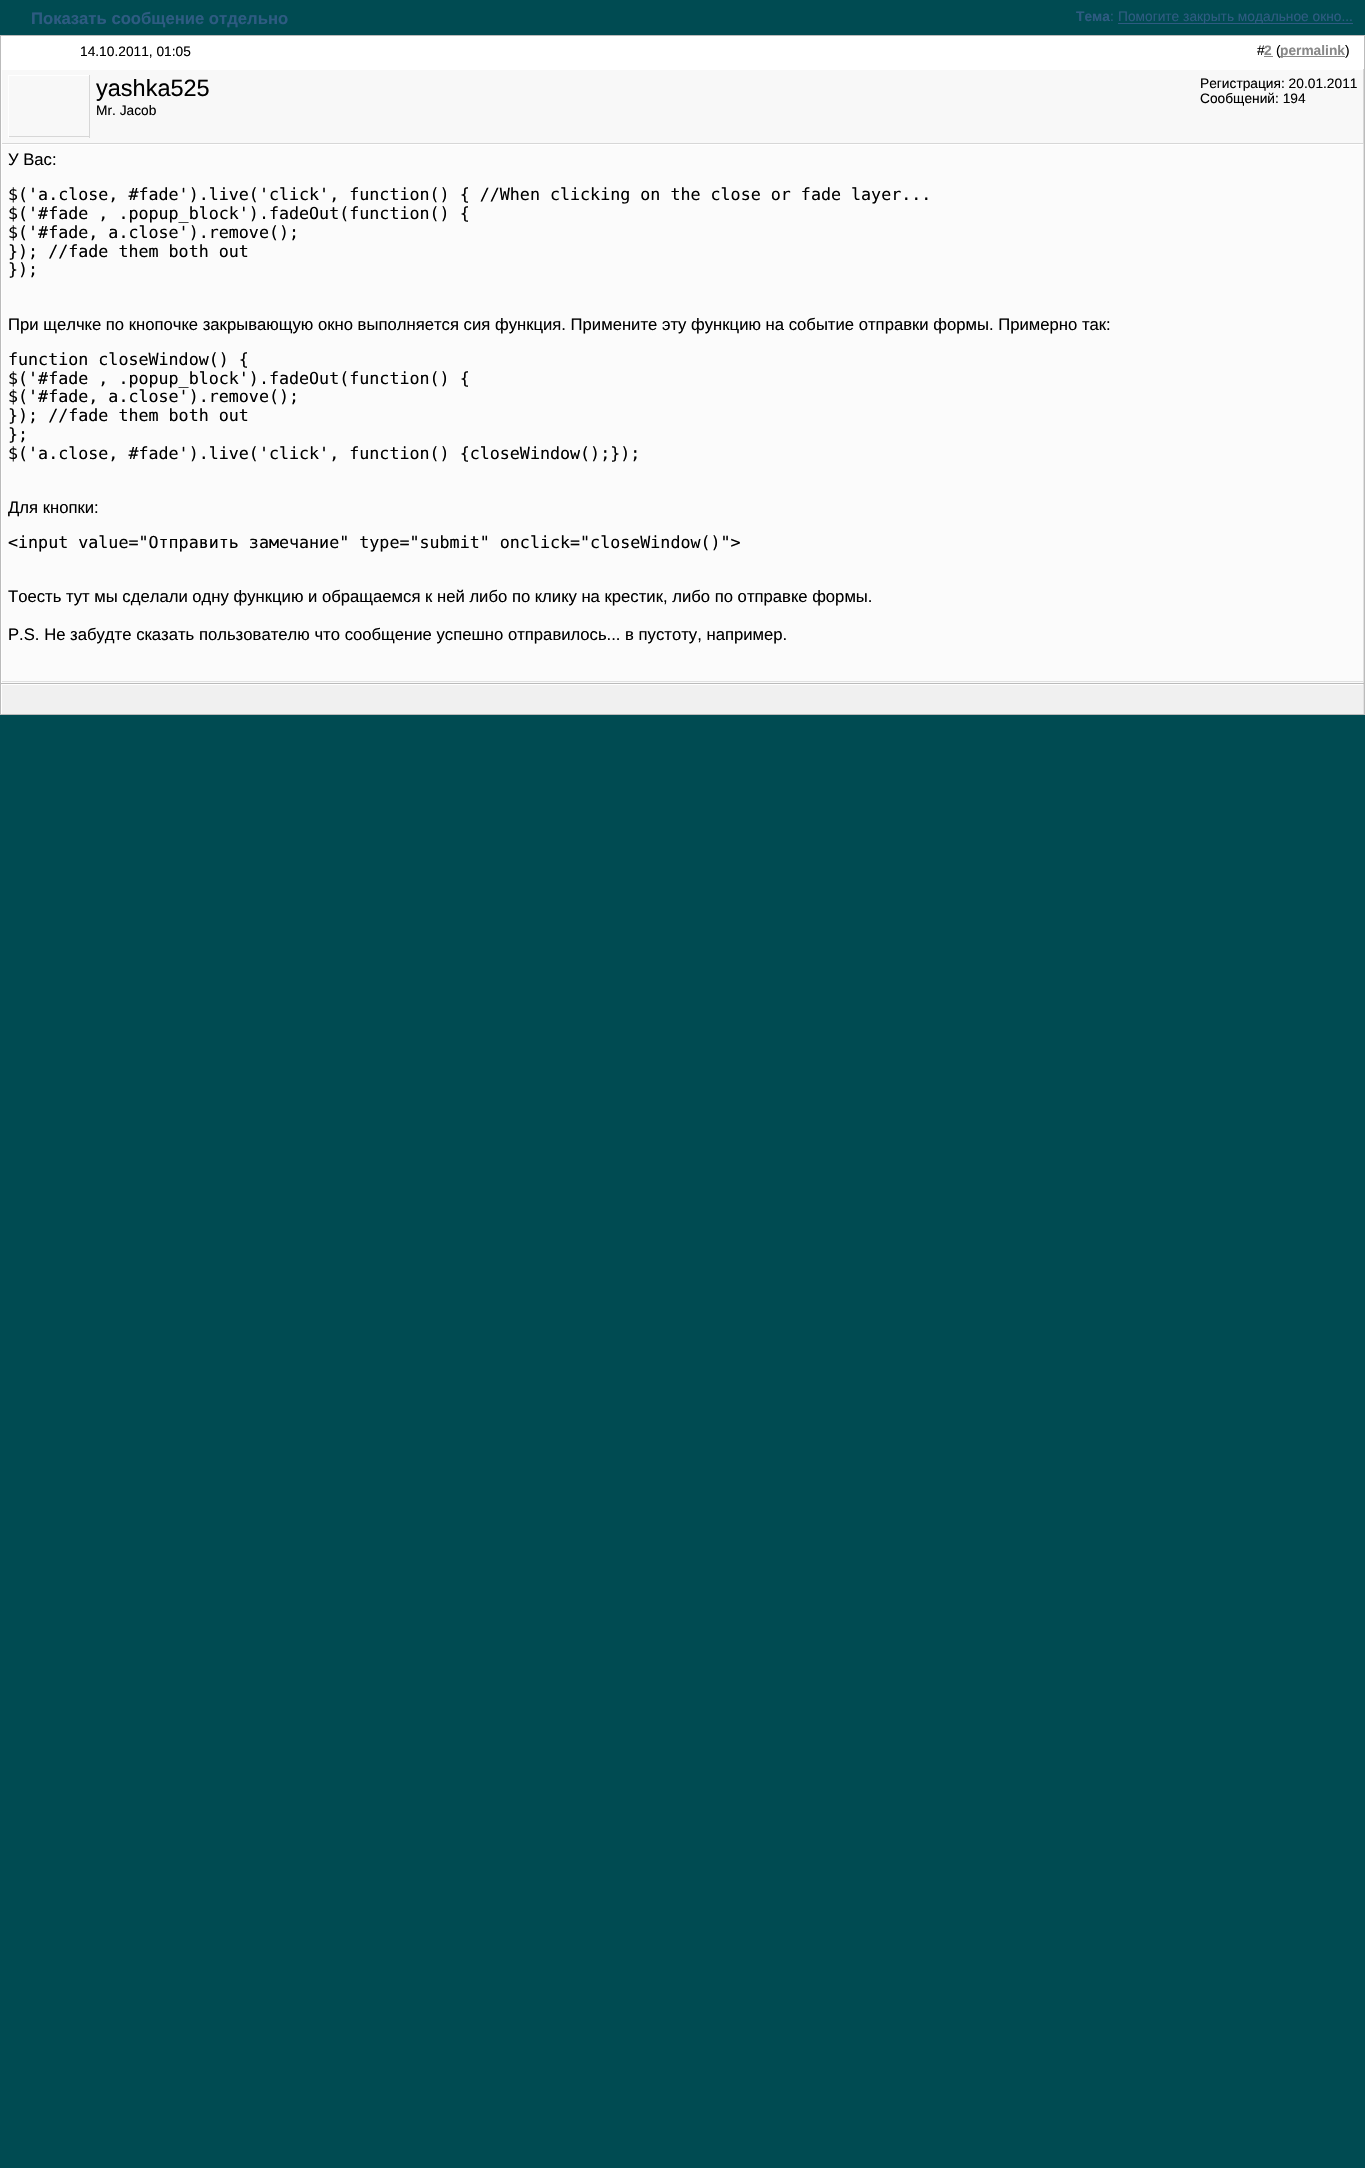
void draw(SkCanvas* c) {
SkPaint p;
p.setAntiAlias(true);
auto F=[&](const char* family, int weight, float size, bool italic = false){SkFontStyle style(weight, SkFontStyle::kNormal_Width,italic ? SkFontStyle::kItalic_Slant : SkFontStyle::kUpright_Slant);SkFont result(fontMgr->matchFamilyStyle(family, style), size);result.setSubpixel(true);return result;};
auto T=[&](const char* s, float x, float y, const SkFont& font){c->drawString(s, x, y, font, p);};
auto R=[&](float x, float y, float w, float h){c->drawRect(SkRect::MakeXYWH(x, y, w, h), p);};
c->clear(0xff004b52);
auto f1 = F("Liberation Sans",700,16.67);
p.setColor(0xff2e5b82);
T("Показать сообщение отдельно",31,24,f1);
auto f2 = F("Liberation Sans",700,13.75);
T("Тема",1076,21,f2);
auto f3 = F("Liberation Sans",400,13.75);
T(":",1110,21,f3);
R(1118,23,235,1);
T("Помогите закрыть модальное окно...",1118,21,f3);
p.setStroke(true);
p.setStrokeWidth(1);
p.setColor(0xffbbbbbb);
c->drawRect(SkRect::MakeXYWH(.5,35.5,1364,648),p);
p.setStroke(false);
p.setColor(0xffffffff);
R(1,36,1363,34);
p.setColor(0xff000000);
T("14.10.2011, 01:05",80,56,f3);
T("#",1257,55,f3);
p.setColor(0xff888888);
T("2",1264,55,f2);
R(1264,56,9,1);
p.setColor(0xff000000);
T("(",1276,55,f3);
p.setColor(0xff888888);
R(1280,56,65,1);
T("permalink",1280,55,f2);
p.setColor(0xff000000);
T(")",1345,55,f3);
p.setColor(0xfff8f8f8);
R(2,70,1361,73);
p.setColor(0xffd7d7d7);
R(1363,69,1,75);
R(1,143,1363,1);
p.setColor(0xffffffff);
R(1,69,1,75);
R(8,75,82,1);
p.setColor(0xffd7d7d7);
R(89,75,1,63);
R(8,136,82,1);
p.setColor(0xffffffff);
R(8,75,1,63);
auto f4 = F("Liberation Sans",400,23.5);
p.setColor(0xff000000);
T("yashka525",96,96,f4);
T("Mr. Jacob",96,115,f3);
T("Регистрация: 20.01.2011",1200,88,f3);
T("Сообщений: 194",1200,103,f3);
p.setColor(0xfffbfbfb);
R(2,145,1361,538);
p.setColor(0xffffffff);
R(1,144,1363,1);
p.setColor(0xffe0e0e0);
R(1363,144,1,539);
R(1,681,1363,1);
p.setColor(0xffffffff);
R(1,144,1,539);
auto f5 = F("Liberation Sans",400,16.67);
p.setColor(0xff000000);
T("У Вас:",8,165,f5);
auto f6 = F("DejaVu Sans Mono",400,16.67);
T("$('a.close, #fade').live('click', function() { //When clicking on the close or fade layer...",8,200,f6);
T("$('#fade , .popup_block').fadeOut(function() {",8,219,f6);
T("$('#fade, a.close').remove();",8,238,f6);
T("}); //fade them both out",8,257,f6);
T("});",8,275,f6);
T("При щелчке по кнопочке закрывающую окно выполняется сия функция. Примените эту функцию на событие отправки формы. Примерно так:",8,330,f5);
T("function closeWindow() {",8,365,f6);
T("$('#fade , .popup_block').fadeOut(function() {",8,384,f6);
T("$('#fade, a.close').remove();",8,402,f6);
T("}); //fade them both out",8,421,f6);
T("};",8,440,f6);
T("$('a.close, #fade').live('click', function() {closeWindow();});",8,459,f6);
T("Для кнопки:",8,513,f5);
T("<input value=\"Отправить замечание\" type=\"submit\" onclick=\"closeWindow()\">",8,548,f6);
T("Тоесть тут мы сделали одну функцию и обращаемся к ней либо по клику на крестик, либо по отправке формы.",8,602,f5);
T("P.S. Не забудте сказать пользователю что сообщение успешно отправилось... в пустоту, например.",8,640,f5);
p.setColor(0xffbbbbbb);
R(1364,684,1,31);
R(0,714,1365,1);
R(0,684,1,31);
p.setColor(0xfff0f0f0);
R(2,685,1361,29);
p.setColor(0xffffffff);
R(1,684,1363,1);
p.setColor(0xffe0e0e0);
R(1363,684,1,30);
p.setColor(0xffffffff);
R(1,684,1,30);
}
